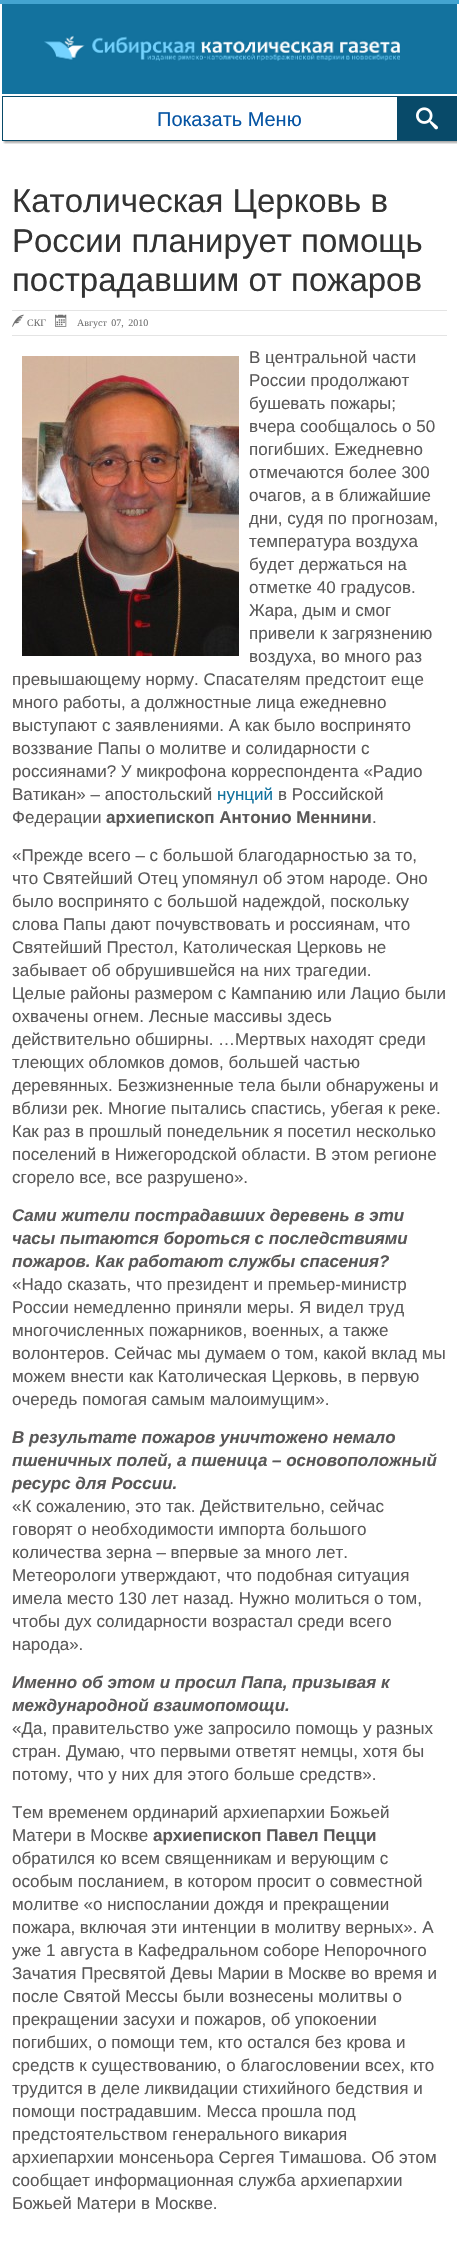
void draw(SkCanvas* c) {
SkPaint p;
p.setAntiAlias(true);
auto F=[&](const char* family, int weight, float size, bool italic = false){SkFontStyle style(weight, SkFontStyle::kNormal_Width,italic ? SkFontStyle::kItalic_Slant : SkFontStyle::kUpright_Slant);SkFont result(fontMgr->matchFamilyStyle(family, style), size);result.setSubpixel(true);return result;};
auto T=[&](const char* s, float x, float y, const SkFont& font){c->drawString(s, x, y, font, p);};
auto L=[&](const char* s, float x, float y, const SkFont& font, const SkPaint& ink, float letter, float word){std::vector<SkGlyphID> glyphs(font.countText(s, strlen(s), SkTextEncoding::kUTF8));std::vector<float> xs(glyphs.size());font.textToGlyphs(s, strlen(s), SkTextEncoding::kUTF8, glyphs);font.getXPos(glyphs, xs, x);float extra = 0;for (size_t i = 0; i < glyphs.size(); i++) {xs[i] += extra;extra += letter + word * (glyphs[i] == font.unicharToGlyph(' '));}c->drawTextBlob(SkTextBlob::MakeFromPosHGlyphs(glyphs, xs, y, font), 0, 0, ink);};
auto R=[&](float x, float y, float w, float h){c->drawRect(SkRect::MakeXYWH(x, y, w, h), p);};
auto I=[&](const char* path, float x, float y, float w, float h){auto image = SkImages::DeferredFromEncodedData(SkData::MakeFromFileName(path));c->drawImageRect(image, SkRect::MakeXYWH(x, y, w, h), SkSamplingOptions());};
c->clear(0xffffffff);
p.setColor(0xff43a4d1);
R(0,0,459,4);
p.setColor(0xff13729e);
R(2,4,455,90);
I("1.png",44,35,356,26);
c->save();
c->clipRect(SkRect::MakeXYWH(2,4,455,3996));
c->clipRect(SkRect::MakeXYWH(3,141,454,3));
p.setColor(0x57000000);
p.setMaskFilter(SkMaskFilter::MakeBlur(kNormal_SkBlurStyle, 1));
c->drawRect(SkRect::MakeXYWH(4,98,455,45),p);
p.setMaskFilter(nullptr);
c->restore();
p.setStroke(true);
p.setStrokeWidth(1);
p.setColor(0xff084a69);
c->drawRect(SkRect::MakeXYWH(2.5,96.5,454,44),p);
auto f1 = F("Liberation Sans",400,20);
p.setStroke(false);
p.setColor(0xff0554a3);
T("Показать Меню",157,126,f1);
p.setColor(0xff084a69);
R(397,97,59,43);
I("2.png",416,107,22,23);
auto f2 = F("Liberation Sans",400,33);
p.setColor(0xff333333);
T("Католическая Церковь в",12,212,f2);
T("России планирует помощь",12,252,f2);
T("пострадавшим от пожаров",12,291,f2);
p.setColor(0xffe4e4e4);
R(12,310,435,1);
R(12,335,435,1);
I("3.png",12,314,12,13);
auto f3 = F("Liberation Serif",400,10);
p.setColor(0xff707070);
T("СКГ",27,326,f3);
I("4.png",55,314,12,13);
L("Август 07, 2010",77,326,f3,p,0,2);
I("5.png",22,356,217,300);
auto f4 = F("Liberation Sans",400,17);
p.setColor(0xff5a5959);
T("В центральной части",249,363,f4);
T("России продолжают",249,386,f4);
T("бушевать пожары;",249,409,f4);
T("вчера сообщалось о 50",249,432,f4);
T("погибших. Ежедневно",249,455,f4);
T("отмечаются более 300",249,478,f4);
T("очагов, а в ближайшие",249,501,f4);
T("дни, судя по прогнозам,",249,524,f4);
T("температура воздуха",249,547,f4);
T("будет держаться на",249,570,f4);
T("отметке 40 градусов.",249,593,f4);
T("Жара, дым и смог",249,616,f4);
T("привели к загрязнению",249,639,f4);
T("воздуха, во много раз",249,662,f4);
T("превышающему норму. Спасателям предстоит еще",12,685,f4);
T("много работы, а должностные лица ежедневно",12,708,f4);
T("выступают с заявлениями. А как было воспринято",12,731,f4);
T("воззвание Папы о молитве и солидарности с",12,754,f4);
T("россиянами? У микрофона корреспондента «Радио",12,777,f4);
T("Ватикан» – апостольский",12,800,f4);
p.setColor(0xff13729e);
T("нунций",217,800,f4);
p.setColor(0xff5a5959);
T("в Российской",278,800,f4);
T("Федерации",12,823,f4);
auto f5 = F("Liberation Sans",700,17);
T("архиепископ Антонио Меннини",106,823,f5);
T(".",372,823,f4);
T("«Прежде всего – с большой благодарностью за то,",12,861,f4);
T("что Святейший Отец упомянул об этом народе. Оно",12,884,f4);
T("было воспринято с большой надеждой, поскольку",12,907,f4);
T("слова Папы дают почувствовать и россиянам, что",12,930,f4);
T("Святейший Престол, Католическая Церковь не",12,953,f4);
T("забывает об обрушившейся на них трагедии.",12,976,f4);
T("Целые районы размером с Кампанию или Лацио были",12,999,f4);
T("охвачены огнем. Лесные массивы здесь",12,1022,f4);
T("действительно обширны. …Мертвых находят среди",12,1045,f4);
T("тлеющих обломков домов, большей частью",12,1068,f4);
T("деревянных. Безжизненные тела были обнаружены и",12,1091,f4);
T("вблизи рек. Многие пытались спастись, убегая к реке.",12,1114,f4);
T("Как раз в прошлый понедельник я посетил несколько",12,1137,f4);
T("поселений в Нижегородской области. В этом регионе",12,1160,f4);
T("сгорело все, все разрушено».",12,1183,f4);
auto f6 = F("Liberation Sans",700,17,true);
T("Сами жители пострадавших деревень в эти",12,1221,f6);
T("часы пытаются бороться с последствиями",12,1244,f6);
T("пожаров. Как работают службы спасения?",12,1267,f6);
T("«Надо сказать, что президент и премьер-министр",12,1290,f4);
T("России немедленно приняли меры. Я видел труд",12,1313,f4);
T("многочисленных пожарников, военных, а также",12,1336,f4);
T("волонтеров. Сейчас мы думаем о том, какой вклад мы",12,1359,f4);
T("можем внести как Католическая Церковь, в первую",12,1382,f4);
T("очередь помогая самым малоимущим».",12,1405,f4);
T("В результате пожаров уничтожено немало",12,1443,f6);
T("пшеничных полей, а пшеница – основоположный",12,1466,f6);
T("ресурс для России.",12,1489,f6);
T("«К сожалению, это так. Действительно, сейчас",12,1512,f4);
T("говорят о необходимости импорта большого",12,1535,f4);
T("количества зерна – впервые за много лет.",12,1558,f4);
T("Метеорологи утверждают, что подобная ситуация",12,1581,f4);
T("имела место 130 лет назад. Нужно молиться о том,",12,1604,f4);
T("чтобы дух солидарности возрастал среди всего",12,1627,f4);
T("народа».",12,1650,f4);
T("Именно об этом и просил Папа, призывая к",12,1688,f6);
T("международной взаимопомощи.",12,1711,f6);
T("«Да, правительство уже запросило помощь у разных",12,1734,f4);
T("стран. Думаю, что первыми ответят немцы, хотя бы",12,1757,f4);
T("потому, что у них для этого больше средств».",12,1780,f4);
T("Тем временем ординарий архиепархии Божьей",12,1818,f4);
T("Матери в Москве",12,1841,f4);
T("архиепископ Павел Пецци",153,1841,f5);
T("обратился ко всем священникам и верующим с",12,1864,f4);
T("особым посланием, в котором просит о совместной",12,1887,f4);
T("молитве «о ниспослании дождя и прекращении",12,1910,f4);
T("пожара, включая эти интенции в молитву верных». А",12,1933,f4);
T("уже 1 августа в Кафедральном соборе Непорочного",12,1956,f4);
T("Зачатия Пресвятой Девы Марии в Москве во время и",12,1979,f4);
T("после Святой Мессы были вознесены молитвы о",12,2002,f4);
T("прекращении засухи и пожаров, об упокоении",12,2025,f4);
T("погибших, о помощи тем, кто остался без крова и",12,2048,f4);
T("средств к существованию, о благословении всех, кто",12,2071,f4);
T("трудится в деле ликвидации стихийного бедствия и",12,2094,f4);
T("помощи пострадавшим. Месса прошла под",12,2117,f4);
T("предстоятельством генерального викария",12,2140,f4);
T("архиепархии монсеньора Сергея Тимашова. Об этом",12,2163,f4);
T("сообщает информационная служба архиепархии",12,2186,f4);
T("Божьей Матери в Москве.",12,2209,f4);
}
